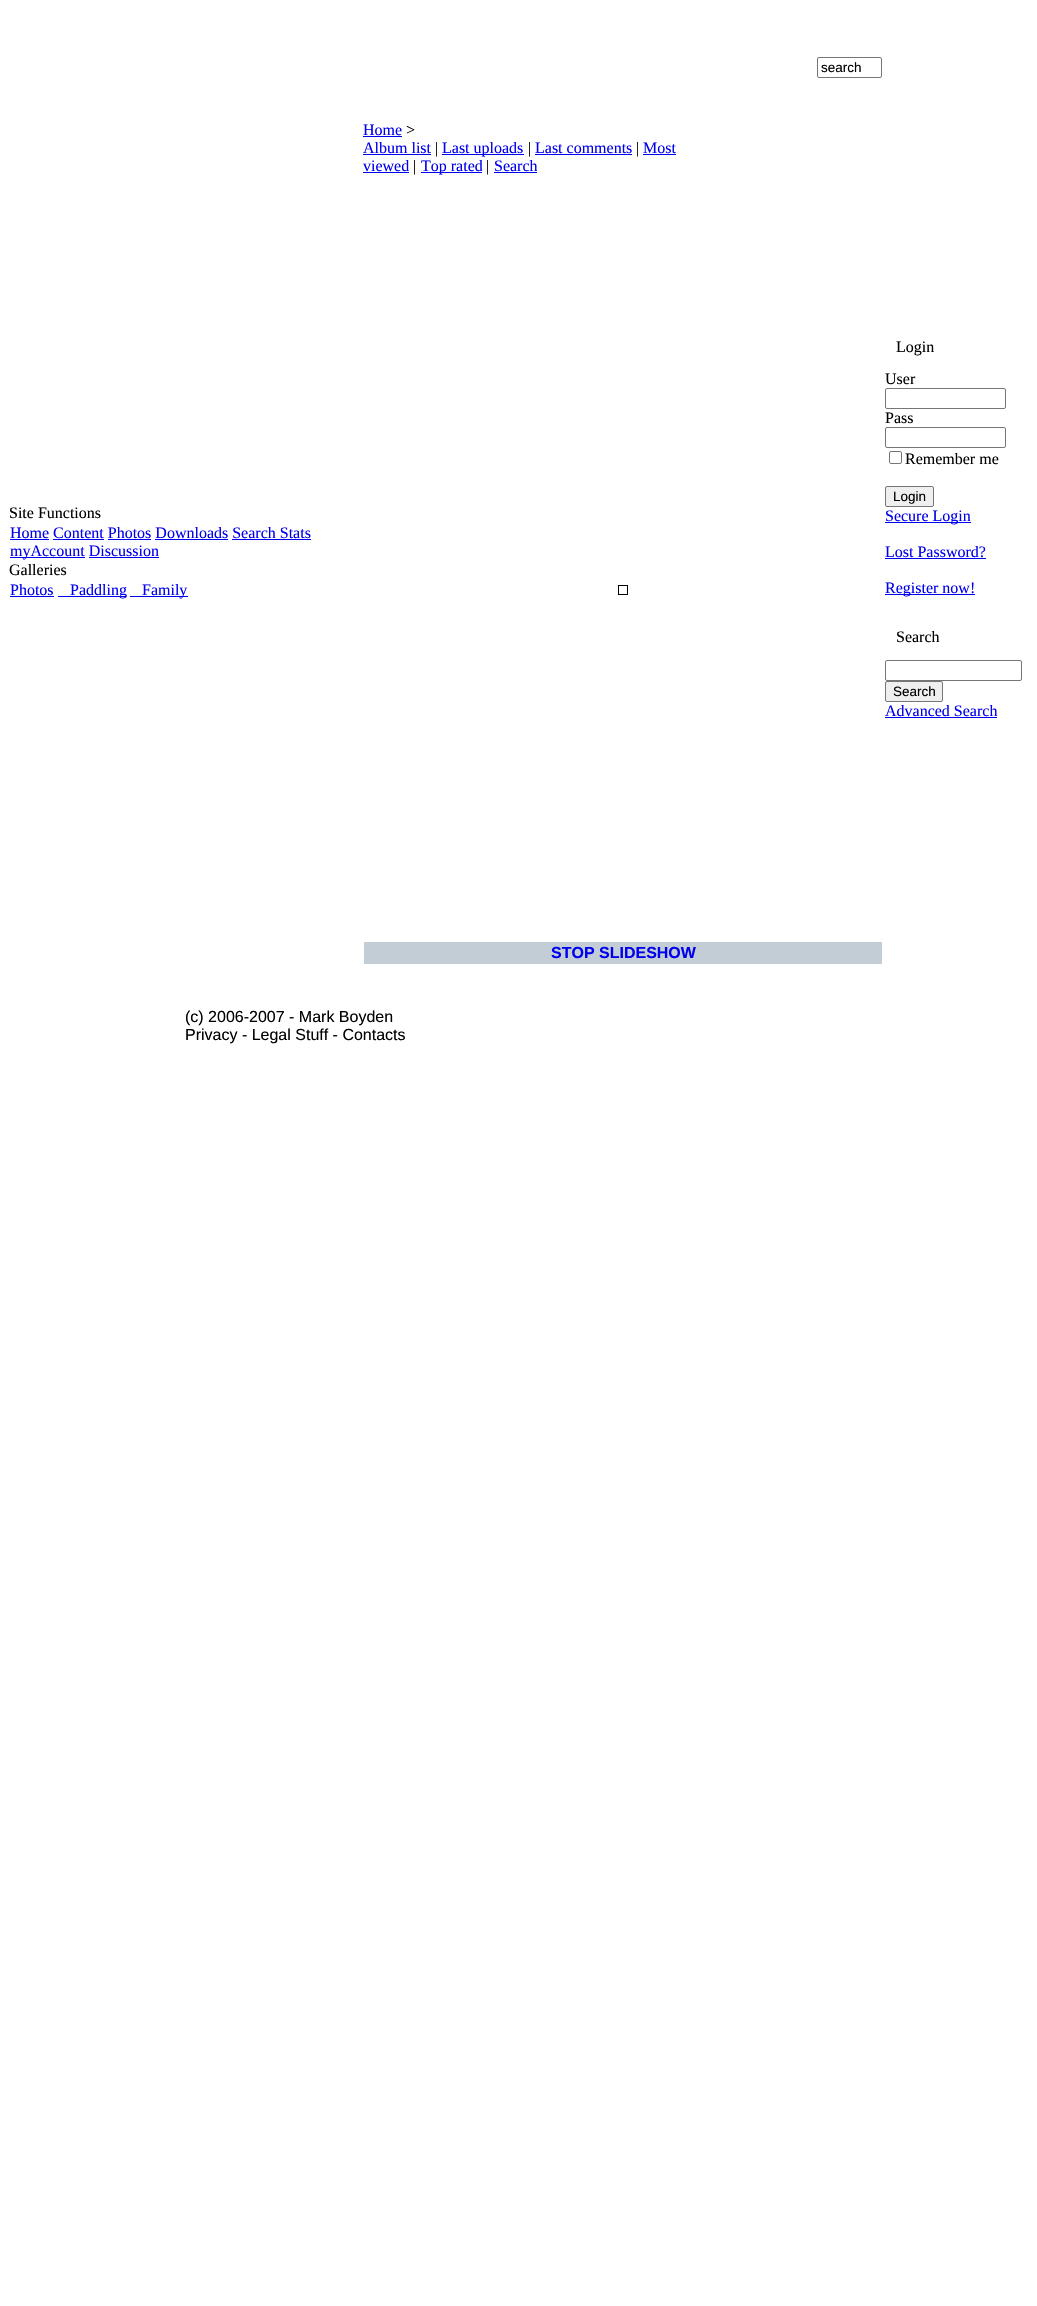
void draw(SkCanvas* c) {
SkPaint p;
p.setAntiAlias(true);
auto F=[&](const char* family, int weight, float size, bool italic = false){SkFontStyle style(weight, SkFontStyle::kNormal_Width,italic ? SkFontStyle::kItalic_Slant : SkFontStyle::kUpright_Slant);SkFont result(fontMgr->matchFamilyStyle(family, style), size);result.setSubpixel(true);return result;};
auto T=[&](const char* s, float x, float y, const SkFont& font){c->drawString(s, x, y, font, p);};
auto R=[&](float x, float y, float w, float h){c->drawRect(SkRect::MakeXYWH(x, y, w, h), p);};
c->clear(0xffffffff);
p.setStroke(true);
p.setStrokeWidth(1);
p.setColor(0xff767676);
c->drawRoundRect(SkRect::MakeXYWH(817.5,57.5,64,20),1.5,1.5,p);
auto f1 = F("Liberation Sans",400,13.5);
p.setStroke(false);
p.setColor(0xff000000);
T("search",821,72,f1);
auto f2 = F("Liberation Serif",400,16);
T("Site Functions",9,518,f2);
p.setColor(0xff0000ee);
T("Home Content Photos Downloads Search Stats",10,538,f2);
R(10,539,39,1);
R(53,539,51,1);
R(108,539,43,1);
R(155,539,73,1);
R(232,539,79,1);
R(10,557,75,1);
T("myAccount Discussion",10,556,f2);
R(89,557,70,1);
p.setColor(0xff000000);
T("Galleries",9,575,f2);
p.setColor(0xff0000ee);
T("Photos",10,595,f2);
R(10,596,44,1);
R(58,596,68,1);
T("Paddling",70,595,f2);
R(130,596,58,1);
T("Family",142,595,f2);
T("Home",363,135,f2);
R(363,136,39,1);
p.setColor(0xff000000);
T(">",406,135,f2);
p.setColor(0xff0000ee);
T("Album list",363,153,f2);
R(363,154,68,1);
p.setColor(0xff000000);
T("|",435,153,f2);
p.setColor(0xff0000ee);
R(442,154,82,1);
T("Last uploads",442,153,f2);
p.setColor(0xff000000);
T("|",528,153,f2);
p.setColor(0xff0000ee);
T("Last comments",535,153,f2);
R(535,154,97,1);
p.setColor(0xff000000);
T("|",636,153,f2);
p.setColor(0xff0000ee);
T("Most",643,153,f2);
R(643,154,33,1);
T("viewed",363,171,f2);
R(363,172,46,1);
p.setColor(0xff000000);
T("|",413,171,f2);
p.setColor(0xff0000ee);
R(421,172,61,1);
T("Top rated",421,171,f2);
p.setColor(0xff000000);
T("|",486,171,f2);
p.setColor(0xff0000ee);
T("Search",494,171,f2);
R(494,172,43,1);
p.setStroke(true);
p.setColor(0xff000000);
c->drawRect(SkRect::MakeXYWH(618.5,585.5,9,9),p);
p.setStroke(false);
p.setColor(0xffc2cdd6);
R(364,942,518,22);
auto f3 = F("Liberation Sans",700,16);
p.setColor(0xff0000ee);
T("STOP SLIDESHOW",551,958,f3);
p.setColor(0xff000000);
T("Login",896,352,f2);
T("User",885,384,f2);
p.setStroke(true);
p.setColor(0xff767676);
c->drawRoundRect(SkRect::MakeXYWH(885.5,388.5,120,20),1.5,1.5,p);
p.setStroke(false);
p.setColor(0xff000000);
T("Pass",885,423,f2);
p.setStroke(true);
p.setColor(0xff767676);
c->drawRoundRect(SkRect::MakeXYWH(885.5,427.5,120,20),1.5,1.5,p);
c->drawRoundRect(SkRect::MakeXYWH(889.5,451.5,12,12),1.5,1.5,p);
p.setStroke(false);
p.setColor(0xff000000);
T("Remember me",905,464,f2);
p.setColor(0xffefefef);
c->drawRoundRect(SkRect::MakeXYWH(885.5,486.5,48,20),1.5,1.5,p);
p.setStroke(true);
p.setColor(0xff767676);
c->drawRoundRect(SkRect::MakeXYWH(885.5,486.5,48,20),1.5,1.5,p);
p.setStroke(false);
p.setColor(0xff000000);
T("Login",893,501,f1);
p.setColor(0xff0000ee);
R(885,522,86,1);
T("Secure Login",885,521,f2);
T("Lost Password?",885,557,f2);
R(885,558,101,1);
R(885,594,90,1);
T("Register now!",885,593,f2);
p.setColor(0xff000000);
T("Search",896,642,f2);
p.setStroke(true);
p.setColor(0xff767676);
c->drawRoundRect(SkRect::MakeXYWH(885.5,660.5,136,20),1.5,1.5,p);
p.setStroke(false);
p.setColor(0xffefefef);
c->drawRoundRect(SkRect::MakeXYWH(885.5,681.5,57,20),1.5,1.5,p);
p.setStroke(true);
p.setColor(0xff767676);
c->drawRoundRect(SkRect::MakeXYWH(885.5,681.5,57,20),1.5,1.5,p);
p.setStroke(false);
p.setColor(0xff000000);
T("Search",893,696,f1);
p.setColor(0xff0000ee);
T("Advanced Search",885,716,f2);
R(885,717,112,1);
auto f4 = F("Liberation Sans",400,16);
p.setColor(0xff000000);
T("(c) 2006-2007 - Mark Boyden",185,1022,f4);
T("Privacy - Legal Stuff - Contacts",185,1040,f4);
}
